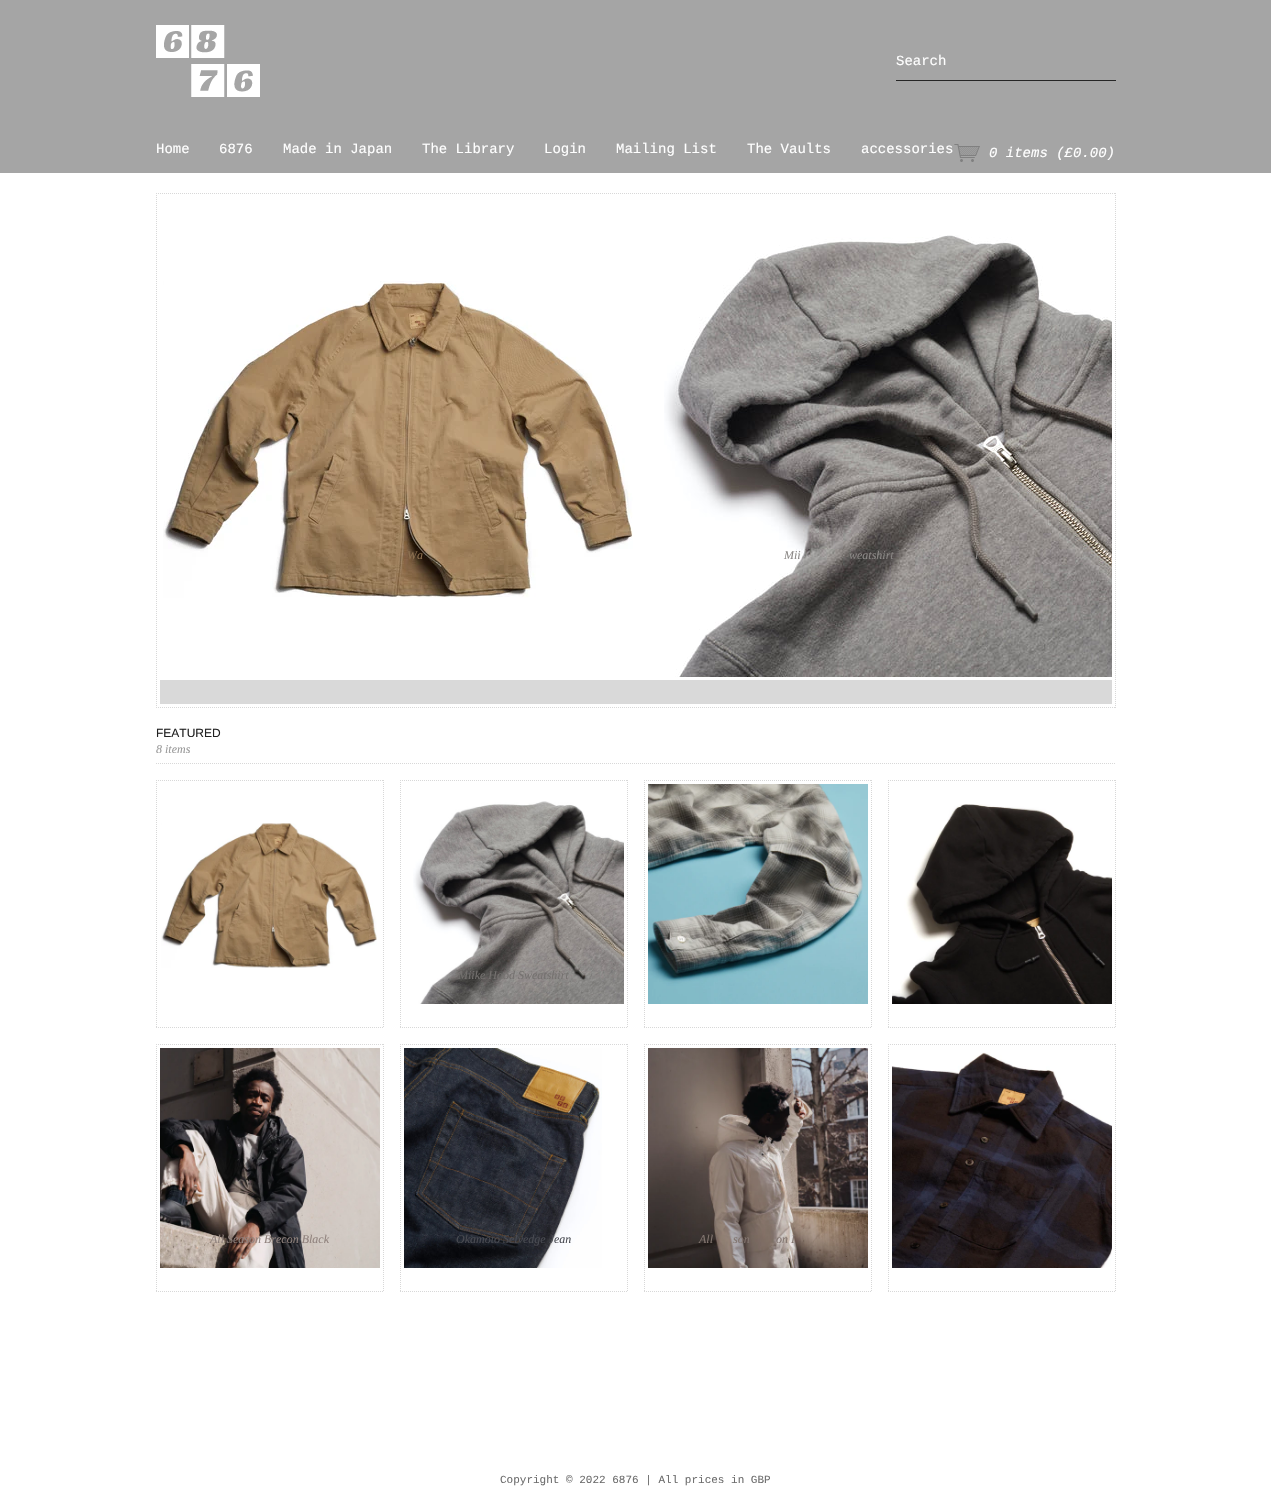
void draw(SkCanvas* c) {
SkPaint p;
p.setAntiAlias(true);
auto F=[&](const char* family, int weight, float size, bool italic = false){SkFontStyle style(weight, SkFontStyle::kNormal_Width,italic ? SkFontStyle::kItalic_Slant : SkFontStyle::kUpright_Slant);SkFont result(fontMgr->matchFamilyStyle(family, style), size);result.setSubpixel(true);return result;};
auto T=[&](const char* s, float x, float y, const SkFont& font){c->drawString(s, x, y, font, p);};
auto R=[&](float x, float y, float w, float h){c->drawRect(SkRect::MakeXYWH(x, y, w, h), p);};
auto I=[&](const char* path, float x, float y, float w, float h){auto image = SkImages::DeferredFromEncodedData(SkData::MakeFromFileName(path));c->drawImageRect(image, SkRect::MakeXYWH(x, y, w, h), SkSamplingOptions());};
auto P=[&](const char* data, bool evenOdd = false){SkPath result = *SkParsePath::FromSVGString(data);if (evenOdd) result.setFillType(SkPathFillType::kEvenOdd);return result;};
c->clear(0xffffffff);
p.setColor(0xffa5a5a5);
R(0,0,1271,173);
I("1.png",156,25,104,72);
p.setColor(0xff262626);
R(896,80,220,1);
auto f1 = F("Liberation Mono",400,14);
p.setColor(0xffffffff);
T("Search",896,65,f1);
T("Home",156,153,f1);
T("6876",219,153,f1);
T("Made in Japan",283,153,f1);
T("The Library",422,153,f1);
T("Login",544,153,f1);
T("Mailing List",616,153,f1);
T("The Vaults",747,153,f1);
T("accessories",861,153,f1);
I("2.png",954,144,26,18);
auto f2 = F("Liberation Mono",400,14,true);
T("0 items (£0.00)",989,157,f2);
p.setStroke(true);
p.setStrokeWidth(1);
p.setColor(0xffd8d8d8);
p.setPathEffect(SkDashPathEffect::Make({{1,1}}, 0));
c->drawPath(P("M156 193.5h960"),p);
p.setPathEffect(nullptr);
p.setPathEffect(SkDashPathEffect::Make({{1,1}}, 0));
c->drawPath(P("M1115.5 193v515"),p);
p.setPathEffect(nullptr);
p.setPathEffect(SkDashPathEffect::Make({{1,1}}, 0));
c->drawPath(P("M156 707.5h960"),p);
p.setPathEffect(nullptr);
p.setPathEffect(SkDashPathEffect::Make({{1,1}}, 0));
c->drawPath(P("M156.5 193v515"),p);
p.setPathEffect(nullptr);
I("3.png",163,281,470,317);
auto f3 = F("Liberation Serif",400,12,true);
p.setStroke(false);
p.setColor(0xff8c7050);
T("Wa",407,559,f3);
I("4.png",664,235,448,442);
p.setColor(0xff8b8886);
T("Mii",784,559,f3);
T("weatshirt",849,559,f3);
T("i",975,559,f3);
p.setColor(0xffd9d9d9);
R(160,680,952,24);
p.setStroke(true);
p.setColor(0xffd8d8d8);
p.setPathEffect(SkDashPathEffect::Make({{1,1}}, 0));
c->drawPath(P("M156 763.5h960"),p);
p.setPathEffect(nullptr);
auto f4 = F("Liberation Sans",400,12);
p.setStroke(false);
p.setColor(0xff222222);
T("FEATURED",156,737,f4);
p.setColor(0xff999999);
T("8 items",156,753,f3);
p.setStroke(true);
p.setColor(0xffd8d8d8);
p.setPathEffect(SkDashPathEffect::Make({{1,1}}, 0));
c->drawPath(P("M156 780.5h228"),p);
p.setPathEffect(nullptr);
p.setPathEffect(SkDashPathEffect::Make({{1,1}}, 0));
c->drawPath(P("M383.5 780v248"),p);
p.setPathEffect(nullptr);
p.setPathEffect(SkDashPathEffect::Make({{1,1}}, 0));
c->drawPath(P("M156 1027.5h228"),p);
p.setPathEffect(nullptr);
p.setPathEffect(SkDashPathEffect::Make({{1,1}}, 0));
c->drawPath(P("M156.5 780v248"),p);
p.setPathEffect(nullptr);
I("5.png",161,823,216,145);
p.setPathEffect(SkDashPathEffect::Make({{1,1}}, 0));
c->drawPath(P("M400 780.5h228"),p);
p.setPathEffect(nullptr);
p.setPathEffect(SkDashPathEffect::Make({{1,1}}, 0));
c->drawPath(P("M627.5 780v248"),p);
p.setPathEffect(nullptr);
p.setPathEffect(SkDashPathEffect::Make({{1,1}}, 0));
c->drawPath(P("M400 1027.5h228"),p);
p.setPathEffect(nullptr);
p.setPathEffect(SkDashPathEffect::Make({{1,1}}, 0));
c->drawPath(P("M400.5 780v248"),p);
p.setPathEffect(nullptr);
I("6.png",413,801,211,203);
p.setStroke(false);
p.setColor(0xff74716f);
T("Miike Hood Sweatshirt",458,979,f3);
p.setStroke(true);
p.setColor(0xffd8d8d8);
p.setPathEffect(SkDashPathEffect::Make({{1,1}}, 0));
c->drawPath(P("M644 780.5h228"),p);
p.setPathEffect(nullptr);
p.setPathEffect(SkDashPathEffect::Make({{1,1}}, 0));
c->drawPath(P("M871.5 780v248"),p);
p.setPathEffect(nullptr);
p.setPathEffect(SkDashPathEffect::Make({{1,1}}, 0));
c->drawPath(P("M644 1027.5h228"),p);
p.setPathEffect(nullptr);
p.setPathEffect(SkDashPathEffect::Make({{1,1}}, 0));
c->drawPath(P("M644.5 780v248"),p);
p.setPathEffect(nullptr);
I("7.png",648,784,220,220);
p.setPathEffect(SkDashPathEffect::Make({{1,1}}, 0));
c->drawPath(P("M888 780.5h228"),p);
p.setPathEffect(nullptr);
p.setPathEffect(SkDashPathEffect::Make({{1,1}}, 0));
c->drawPath(P("M1115.5 780v248"),p);
p.setPathEffect(nullptr);
p.setPathEffect(SkDashPathEffect::Make({{1,1}}, 0));
c->drawPath(P("M888 1027.5h228"),p);
p.setPathEffect(nullptr);
p.setPathEffect(SkDashPathEffect::Make({{1,1}}, 0));
c->drawPath(P("M888.5 780v248"),p);
p.setPathEffect(nullptr);
I("8.png",892,804,220,200);
p.setPathEffect(SkDashPathEffect::Make({{1,1}}, 0));
c->drawPath(P("M156 1044.5h228"),p);
p.setPathEffect(nullptr);
p.setPathEffect(SkDashPathEffect::Make({{1,1}}, 0));
c->drawPath(P("M383.5 1044v248"),p);
p.setPathEffect(nullptr);
p.setPathEffect(SkDashPathEffect::Make({{1,1}}, 0));
c->drawPath(P("M156 1291.5h228"),p);
p.setPathEffect(nullptr);
p.setPathEffect(SkDashPathEffect::Make({{1,1}}, 0));
c->drawPath(P("M156.5 1044v248"),p);
p.setPathEffect(nullptr);
I("9.png",160,1048,220,220);
p.setStroke(false);
p.setColor(0xff91837e);
T("All Season Brecon Black",210,1243,f3);
p.setStroke(true);
p.setColor(0xffd8d8d8);
p.setPathEffect(SkDashPathEffect::Make({{1,1}}, 0));
c->drawPath(P("M400 1044.5h228"),p);
p.setPathEffect(nullptr);
p.setPathEffect(SkDashPathEffect::Make({{1,1}}, 0));
c->drawPath(P("M627.5 1044v248"),p);
p.setPathEffect(nullptr);
p.setPathEffect(SkDashPathEffect::Make({{1,1}}, 0));
c->drawPath(P("M400 1291.5h228"),p);
p.setPathEffect(nullptr);
p.setPathEffect(SkDashPathEffect::Make({{1,1}}, 0));
c->drawPath(P("M400.5 1044v248"),p);
p.setPathEffect(nullptr);
I("10.png",404,1048,198,220);
p.setStroke(false);
p.setColor(0xff494b52);
T("Okamoto Selvedge Jean",456,1243,f3);
p.setStroke(true);
p.setColor(0xffd8d8d8);
p.setPathEffect(SkDashPathEffect::Make({{1,1}}, 0));
c->drawPath(P("M644 1044.5h228"),p);
p.setPathEffect(nullptr);
p.setPathEffect(SkDashPathEffect::Make({{1,1}}, 0));
c->drawPath(P("M871.5 1044v248"),p);
p.setPathEffect(nullptr);
p.setPathEffect(SkDashPathEffect::Make({{1,1}}, 0));
c->drawPath(P("M644 1291.5h228"),p);
p.setPathEffect(nullptr);
p.setPathEffect(SkDashPathEffect::Make({{1,1}}, 0));
c->drawPath(P("M644.5 1044v248"),p);
p.setPathEffect(nullptr);
I("11.png",648,1048,220,220);
p.setStroke(false);
p.setColor(0xff82756f);
T("All",699,1243,f3);
T("son",733,1243,f3);
T("on I",776,1243,f3);
p.setStroke(true);
p.setColor(0xffd8d8d8);
p.setPathEffect(SkDashPathEffect::Make({{1,1}}, 0));
c->drawPath(P("M888 1044.5h228"),p);
p.setPathEffect(nullptr);
p.setPathEffect(SkDashPathEffect::Make({{1,1}}, 0));
c->drawPath(P("M1115.5 1044v248"),p);
p.setPathEffect(nullptr);
p.setPathEffect(SkDashPathEffect::Make({{1,1}}, 0));
c->drawPath(P("M888 1291.5h228"),p);
p.setPathEffect(nullptr);
p.setPathEffect(SkDashPathEffect::Make({{1,1}}, 0));
c->drawPath(P("M888.5 1044v248"),p);
p.setPathEffect(nullptr);
I("12.png",892,1052,220,216);
auto f5 = F("Liberation Mono",400,11);
p.setStroke(false);
p.setColor(0xff6c6c6c);
T("Copyright © 2022 6876 | All prices in GBP",500,1483,f5);
}
